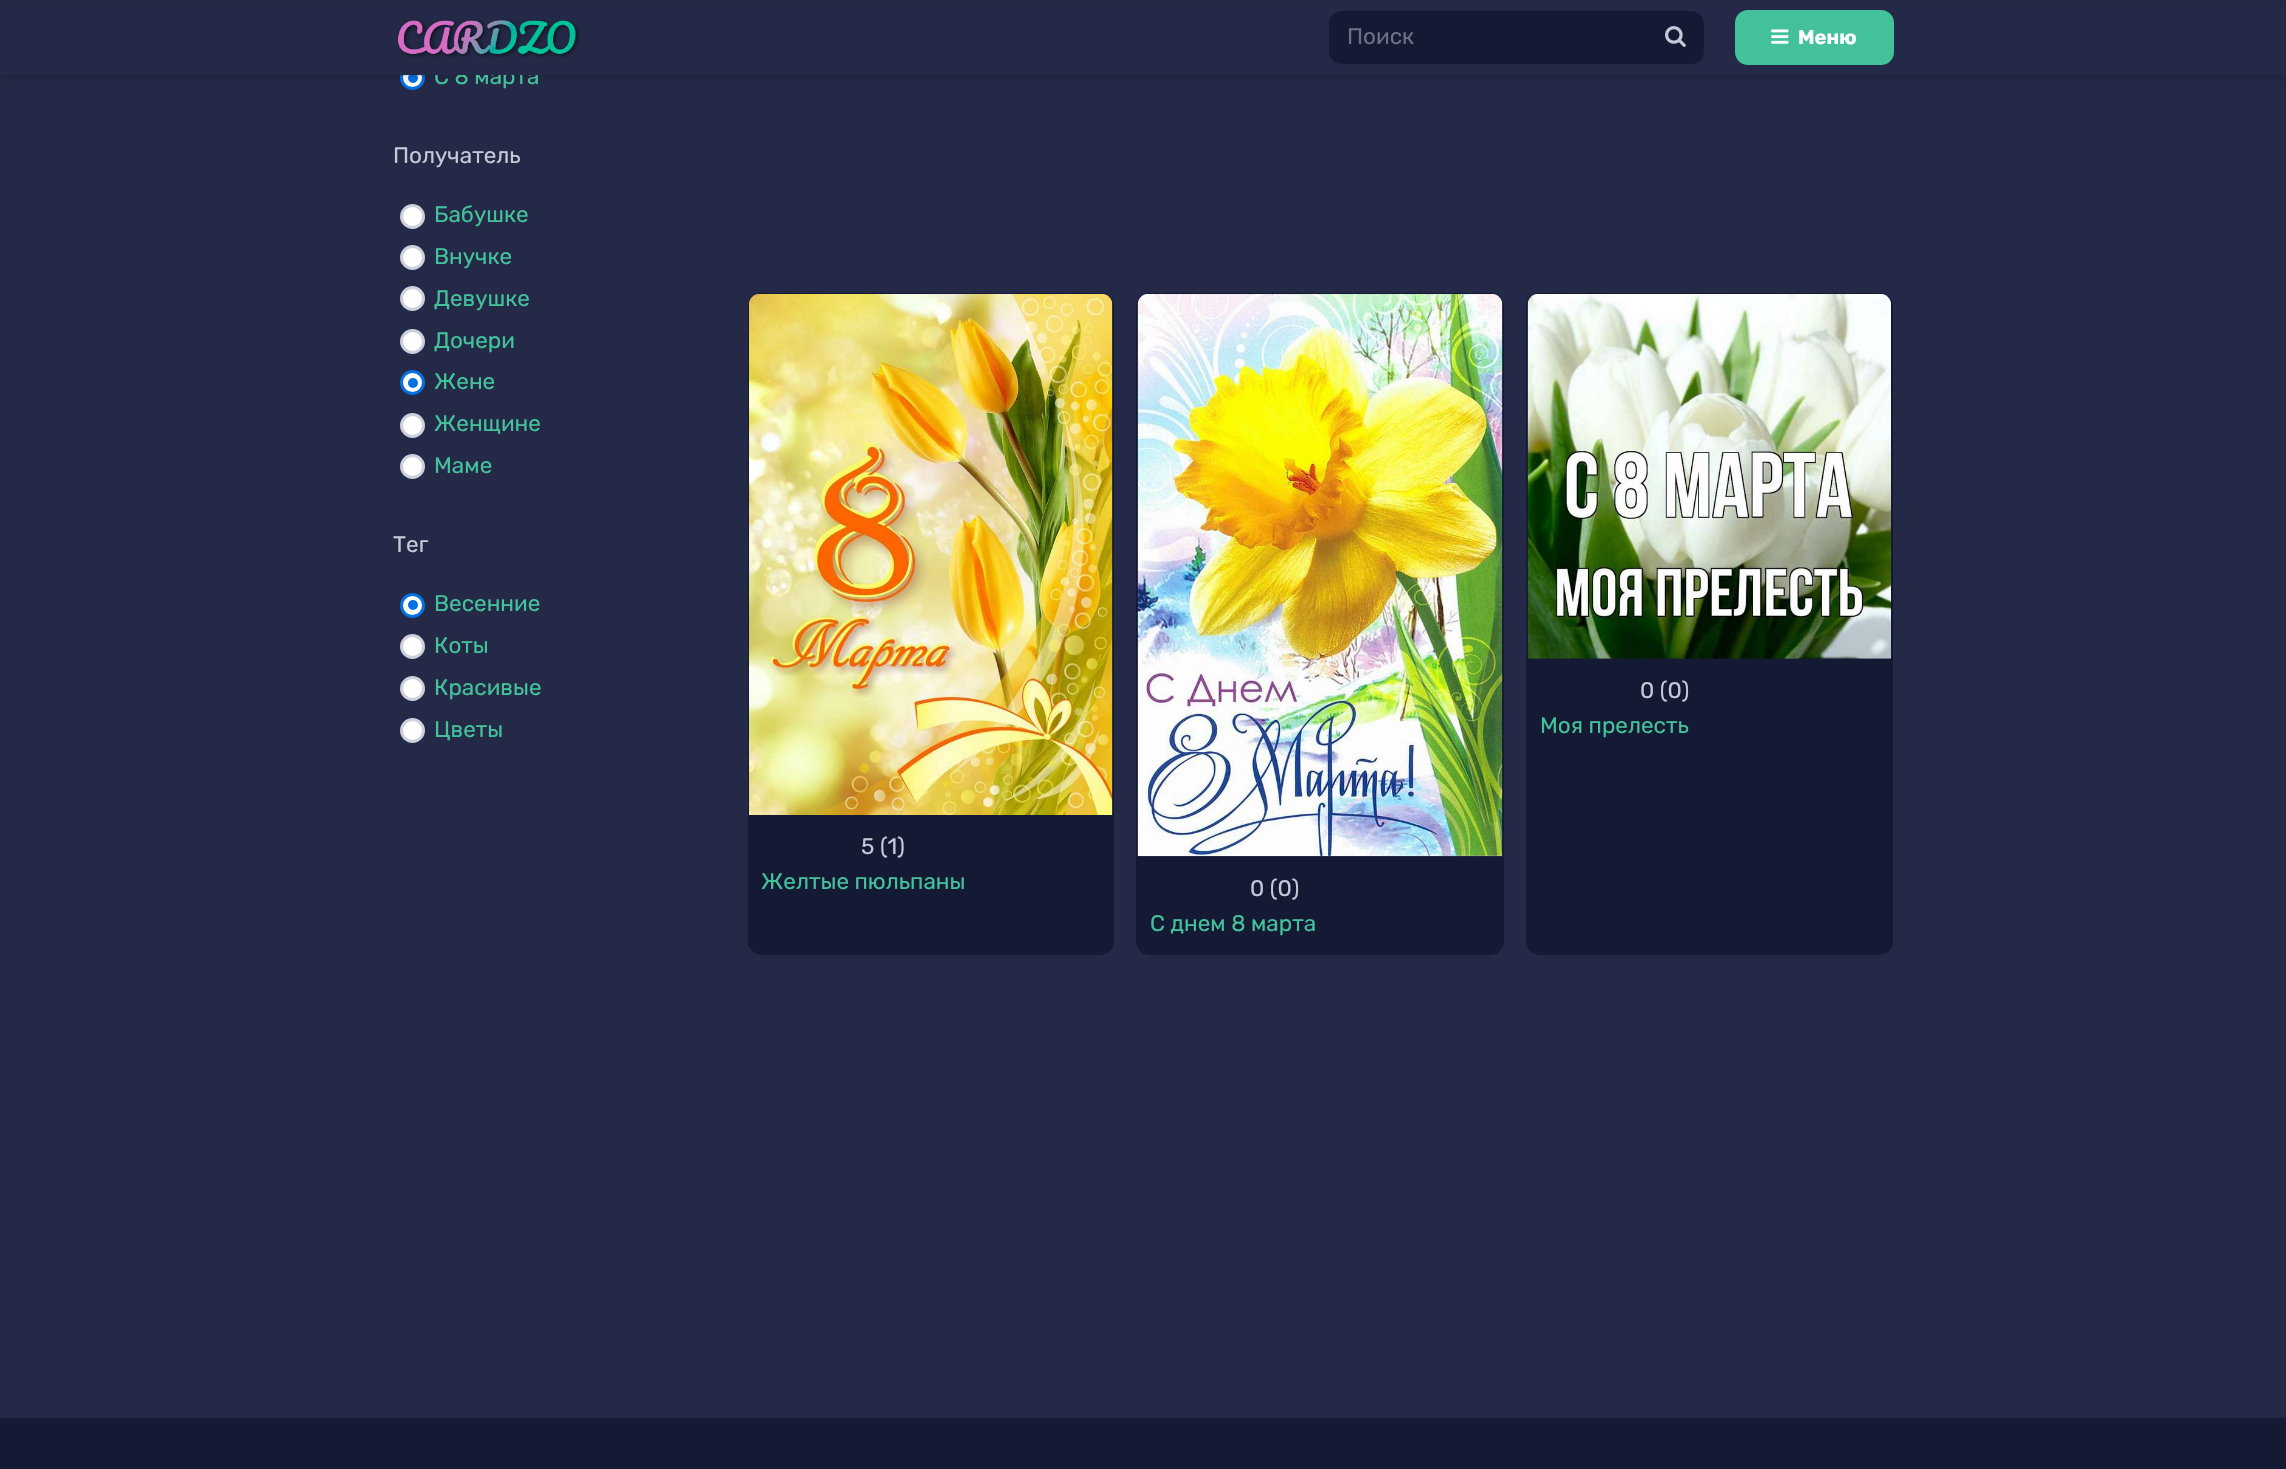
void draw(SkCanvas* c) {
SkPaint p;
p.setAntiAlias(true);
auto F=[&](const char* family, int weight, float size, bool italic = false){SkFontStyle style(weight, SkFontStyle::kNormal_Width,italic ? SkFontStyle::kItalic_Slant : SkFontStyle::kUpright_Slant);SkFont result(fontMgr->matchFamilyStyle(family, style), size);result.setSubpixel(true);return result;};
auto T=[&](const char* s, float x, float y, const SkFont& font){c->drawString(s, x, y, font, p);};
auto R=[&](float x, float y, float w, float h){c->drawRect(SkRect::MakeXYWH(x, y, w, h), p);};
auto Q=[&](float x, float y, float w, float h, float radius){c->drawRoundRect(SkRect::MakeXYWH(x, y, w, h), radius, radius, p);};
auto I=[&](const char* path, float x, float y, float w, float h){auto image = SkImages::DeferredFromEncodedData(SkData::MakeFromFileName(path));c->drawImageRect(image, SkRect::MakeXYWH(x, y, w, h), SkSamplingOptions());};
auto P=[&](const char* data, bool evenOdd = false){SkPath result = *SkParsePath::FromSVGString(data);if (evenOdd) result.setFillType(SkPathFillType::kEvenOdd);return result;};
c->clear(0xff232946);
p.setColor(0xffffffff);
c->drawCircle(412.5,77.5,11,p);
p.setStroke(true);
p.setStrokeWidth(3);
p.setColor(0xff0570e2);
c->drawCircle(412.5,77.5,11,p);
p.setStroke(false);
c->drawCircle(413,78,5,p);
p.setColor(0x0d000000);
p.setMaskFilter(SkMaskFilter::MakeBlur(kNormal_SkBlurStyle, .5));
c->drawRect(SkRect::MakeXYWH(1,4,2284,72),p);
p.setMaskFilter(nullptr);
p.setColor(0x1a000000);
p.setMaskFilter(SkMaskFilter::MakeBlur(kNormal_SkBlurStyle, 3));
c->drawRect(SkRect::MakeXYWH(1,5,2284,73),p);
p.setMaskFilter(nullptr);
auto f1 = F("Rubik",300,22.5);
p.setColor(0xff43c19a);
T("С 8 марта",434,84,f1);
p.setColor(0xff232946);
R(0,4,2286,71);
I("1.png",397,19,183,39);
p.setColor(0xff202640);
c->drawPath(P("M1329 55c2 6 7 10 13 10h349c7 0 13-6 13-13v-29v28c0 7-6 13-13 13h-350c-5 0-10-4-12-9z"),p);
p.setColor(0xff141a33);
Q(1329,11,375,53,13);
p.setColor(0xff6c7285);
T("Поиск",1347,44,f1);
I("2.png",1665,26,21,21);
p.setColor(0xff43c19a);
Q(1735,10,159,55,13);
I("3.png",1771,29,18,15);
auto f2 = F("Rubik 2",300,20);
p.setColor(0xffffffff);
T("Меню",1798,44,f2);
p.setColor(0xffc3c9d6);
T("Получатель",393,163,f1);
p.setColor(0xffffffff);
c->drawCircle(412.5,216.5,11,p);
p.setStroke(true);
p.setColor(0xffccd0dc);
c->drawCircle(412.5,216.5,11,p);
p.setStroke(false);
p.setColor(0xff43c19a);
T("Бабушке",434,222,f1);
p.setColor(0xffffffff);
c->drawCircle(412.5,257.5,11,p);
p.setStroke(true);
p.setColor(0xffccd0dc);
c->drawCircle(412.5,257.5,11,p);
p.setStroke(false);
p.setColor(0xff43c19a);
T("Внучке",434,264,f1);
p.setColor(0xffffffff);
c->drawCircle(412.5,298.5,11,p);
p.setStroke(true);
p.setColor(0xffccd0dc);
c->drawCircle(412.5,298.5,11,p);
p.setStroke(false);
p.setColor(0xff43c19a);
T("Девушке",434,306,f1);
p.setColor(0xffffffff);
c->drawCircle(412.5,341.5,11,p);
p.setStroke(true);
p.setColor(0xffccd0dc);
c->drawCircle(412.5,341.5,11,p);
p.setStroke(false);
p.setColor(0xff43c19a);
T("Дочери",434,348,f1);
p.setColor(0xffffffff);
c->drawCircle(412.5,382.5,11,p);
p.setStroke(true);
p.setColor(0xff0570e2);
c->drawCircle(412.5,382.5,11,p);
p.setStroke(false);
c->drawCircle(413,383,5,p);
p.setColor(0xff43c19a);
T("Жене",434,389,f1);
p.setColor(0xffffffff);
c->drawCircle(412.5,425.5,11,p);
p.setStroke(true);
p.setColor(0xffccd0dc);
c->drawCircle(412.5,425.5,11,p);
p.setStroke(false);
p.setColor(0xff43c19a);
T("Женщине",434,431,f1);
p.setColor(0xffffffff);
c->drawCircle(412.5,466.5,11,p);
p.setStroke(true);
p.setColor(0xffccd0dc);
c->drawCircle(412.5,466.5,11,p);
p.setStroke(false);
p.setColor(0xff43c19a);
T("Маме",434,473,f1);
p.setColor(0xffc3c9d6);
T("Тег",393,552,f1);
p.setColor(0xffffffff);
c->drawCircle(412.5,605.5,11,p);
p.setStroke(true);
p.setColor(0xff0570e2);
c->drawCircle(412.5,605.5,11,p);
p.setStroke(false);
c->drawCircle(413,605,5,p);
p.setColor(0xff43c19a);
T("Весенние",434,611,f1);
p.setColor(0xffffffff);
c->drawCircle(412.5,646.5,11,p);
p.setStroke(true);
p.setColor(0xffccd0dc);
c->drawCircle(412.5,646.5,11,p);
p.setStroke(false);
p.setColor(0xff43c19a);
T("Коты",434,653,f1);
p.setColor(0xffffffff);
c->drawCircle(412.5,688.5,11,p);
p.setStroke(true);
p.setColor(0xffccd0dc);
c->drawCircle(412.5,688.5,11,p);
p.setStroke(false);
p.setColor(0xff43c19a);
T("Красивые",434,695,f1);
p.setColor(0xffffffff);
c->drawCircle(412.5,730.5,11,p);
p.setStroke(true);
p.setColor(0xffccd0dc);
c->drawCircle(412.5,730.5,11,p);
p.setStroke(false);
p.setColor(0xff43c19a);
T("Цветы",434,737,f1);
p.setColor(0xff141a33);
c->drawRoundRect(SkRect::MakeXYWH(1526.5,293.5,366,661),12.5,12.5,p);
p.setStroke(true);
p.setStrokeWidth(1);
c->drawRoundRect(SkRect::MakeXYWH(1526.5,293.5,366,661),12.5,12.5,p);
I("4.png",1527,294,364,365);
p.setStroke(false);
p.setColor(0xffc3c9d6);
T("0 (0)",1640,698,f1);
p.setColor(0xff43c19a);
T("Моя прелесть",1540,733,f1);
p.setColor(0xff141a33);
c->drawRoundRect(SkRect::MakeXYWH(748.5,293.5,365,661),12.5,12.5,p);
p.setStroke(true);
c->drawRoundRect(SkRect::MakeXYWH(748.5,293.5,365,661),12.5,12.5,p);
I("5.png",749,294,364,521);
p.setStroke(false);
p.setColor(0xffc3c9d6);
T("5 (1)",861,854,f1);
p.setColor(0xff43c19a);
T("Желтые пюльпаны",761,889,f1);
p.setColor(0xff141a33);
c->drawRoundRect(SkRect::MakeXYWH(1136.5,293.5,367,661),12.5,12.5,p);
p.setStroke(true);
c->drawRoundRect(SkRect::MakeXYWH(1136.5,293.5,367,661),12.5,12.5,p);
I("6.png",1137,294,366,563);
p.setStroke(false);
p.setColor(0xffc3c9d6);
T("0 (0)",1250,896,f1);
p.setColor(0xff43c19a);
T("С днем 8 марта",1150,931,f1);
p.setColor(0xff141a33);
R(0,1418,2286,51);
}
